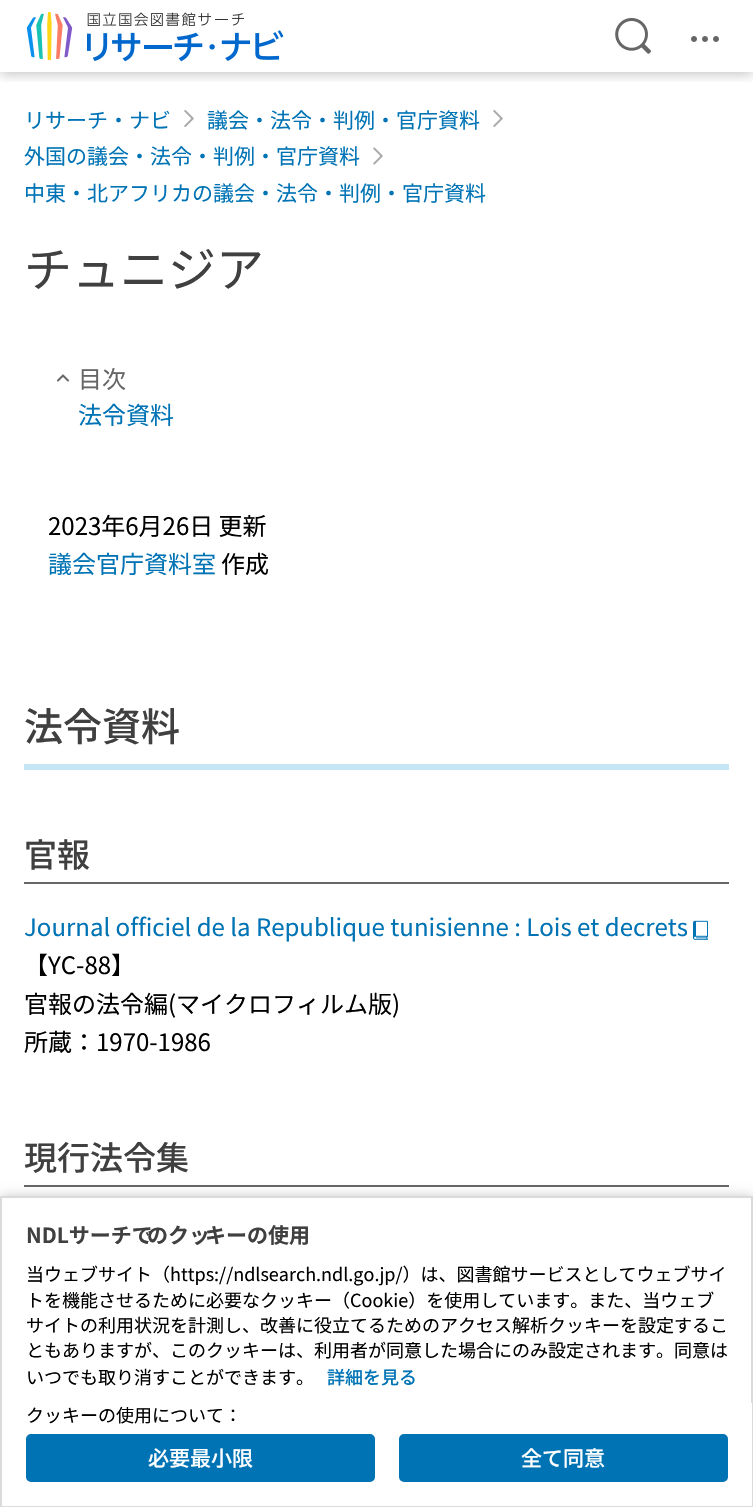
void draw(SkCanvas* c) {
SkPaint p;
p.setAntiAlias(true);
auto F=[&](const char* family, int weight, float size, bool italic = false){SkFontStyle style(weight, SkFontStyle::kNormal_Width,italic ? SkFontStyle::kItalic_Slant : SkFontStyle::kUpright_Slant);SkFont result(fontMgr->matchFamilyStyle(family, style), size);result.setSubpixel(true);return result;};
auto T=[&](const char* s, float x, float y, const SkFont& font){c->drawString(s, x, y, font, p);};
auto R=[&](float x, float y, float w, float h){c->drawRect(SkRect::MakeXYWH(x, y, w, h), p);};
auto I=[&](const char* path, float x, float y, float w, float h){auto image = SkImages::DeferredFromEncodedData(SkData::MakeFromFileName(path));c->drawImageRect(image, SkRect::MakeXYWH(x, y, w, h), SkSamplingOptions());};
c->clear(0xffffffff);
c->save();
c->clipRect(SkRect::MakeXYWH(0,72,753,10));
p.setColor(0x3d000000);
p.setMaskFilter(SkMaskFilter::MakeBlur(kNormal_SkBlurStyle, 6));
c->drawRect(SkRect::MakeXYWH(0,2,753,72),p);
p.setMaskFilter(nullptr);
c->restore();
I("1.png",26,12,47,48);
I("2.png",87,12,157,15);
I("3.png",87,30,197,32);
I("4.png",615,17,36,37);
I("5.png",691,36,28,6);
auto f1 = F("Noto Sans JP",400,21);
p.setColor(0xff0073b5);
T("リサーチ・ナビ",24,128,f1);
I("6.png",184,110,10,17);
T("議会・法令・判例・官庁資料",207,128,f1);
I("6.png",493,110,10,17);
T("外国の議会・法令・判例・官庁資料",24,164,f1);
I("7.png",373,147,10,18);
T("中東・北アフリカの議会・法令・判例・官庁資料",24,201,f1);
auto f2 = F("Noto Sans JP",400,48);
p.setColor(0xff404040);
T("チュニジア",24,287,f2);
I("8.png",56,374,14,8);
auto f3 = F("Noto Sans JP",400,24);
p.setColor(0xff666666);
T("目次",78,388,f3);
p.setColor(0xff0073b5);
T("法令資料",78,424,f3);
p.setColor(0xff000000);
T("2023年6月26日 更新",48,535,f3);
p.setColor(0xff0073b5);
T("議会官庁資料室",48,573,f3);
p.setColor(0xff000000);
T("作成",221,573,f3);
p.setColor(0xffc4e6f5);
R(24,764,705,6);
auto f4 = F("Noto Sans JP",500,39);
p.setColor(0xff404040);
T("法令資料",24,741,f4);
p.setColor(0xff666666);
R(24,882,705,2);
auto f5 = F("Noto Sans JP",500,33);
p.setColor(0xff404040);
T("官報",24,867,f5);
p.setColor(0xff0073b5);
T("Journal officiel de la Republique tunisienne : Lois et decrets",24,936,f3);
I("9.png",693,920,15,20);
p.setColor(0xff000000);
T("【YC-88】",24,974,f3);
T("官報の法令編(マイクロフィルム版)",24,1013,f3);
T("所蔵：1970-1986",24,1051,f3);
p.setColor(0xff666666);
R(24,1185,705,2);
p.setColor(0xff404040);
T("現行法令集",24,1170,f5);
p.setColor(0x3d000000);
p.setMaskFilter(SkMaskFilter::MakeBlur(kNormal_SkBlurStyle, 6));
c->drawRect(SkRect::MakeXYWH(0,1197,753,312),p);
p.setMaskFilter(nullptr);
p.setColor(0xffffffff);
R(2,1198,749,205);
p.setStroke(true);
p.setStrokeWidth(2);
p.setColor(0xffdbdbdb);
c->drawRect(SkRect::MakeXYWH(1,1197,751,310),p);
auto f6 = F("Noto Sans JP",700,21);
p.setStroke(false);
p.setColor(0xff404040);
T("NDLサーチで",26,1243,f6);
T("のクッ",147,1243,f6);
T("キーの使用",205,1243,f6);
auto f7 = F("Noto Sans JP",400,18);
p.setColor(0xff000000);
T("当ウェブサイト（https://ndlsearch.ndl.go.jp/）は、図書館サービスとしてウェブサイ",26,1281,f7);
T("トを機能させるために必要なクッキー（Cookie）を使用しています。また、当ウェブ",26,1307,f7);
T("サイトの利用状況を計測し、改善に役立てるためのアクセス解析クッキーを設定するこ",26,1332,f7);
T("ともありますが、このクッキーは、利用者が同意した場合にのみ設定されます。同意は",26,1357,f7);
T("いつでも取り消すことができます。",26,1384,f7);
auto f8 = F("Noto Sans JP",500,18);
p.setColor(0xff0073b5);
T("詳細を見る",327,1384,f8);
p.setColor(0xffffffff);
R(2,1403,750,103);
p.setColor(0xff000000);
T("クッキーの使用について：",26,1422,f7);
p.setColor(0xff0073b5);
c->drawRoundRect(SkRect::MakeXYWH(27,1435,347,46),4,4,p);
p.setStroke(true);
c->drawRoundRect(SkRect::MakeXYWH(27,1435,347,46),4,4,p);
auto f9 = F("Noto Sans JP",500,21);
p.setStroke(false);
p.setColor(0xffffffff);
T("必要最小限",148,1466,f9);
p.setColor(0xff0073b5);
c->drawRoundRect(SkRect::MakeXYWH(400,1435,327,46),4,4,p);
p.setStroke(true);
c->drawRoundRect(SkRect::MakeXYWH(400,1435,327,46),4,4,p);
p.setStroke(false);
p.setColor(0xffffffff);
T("全て同意",521,1466,f9);
}
